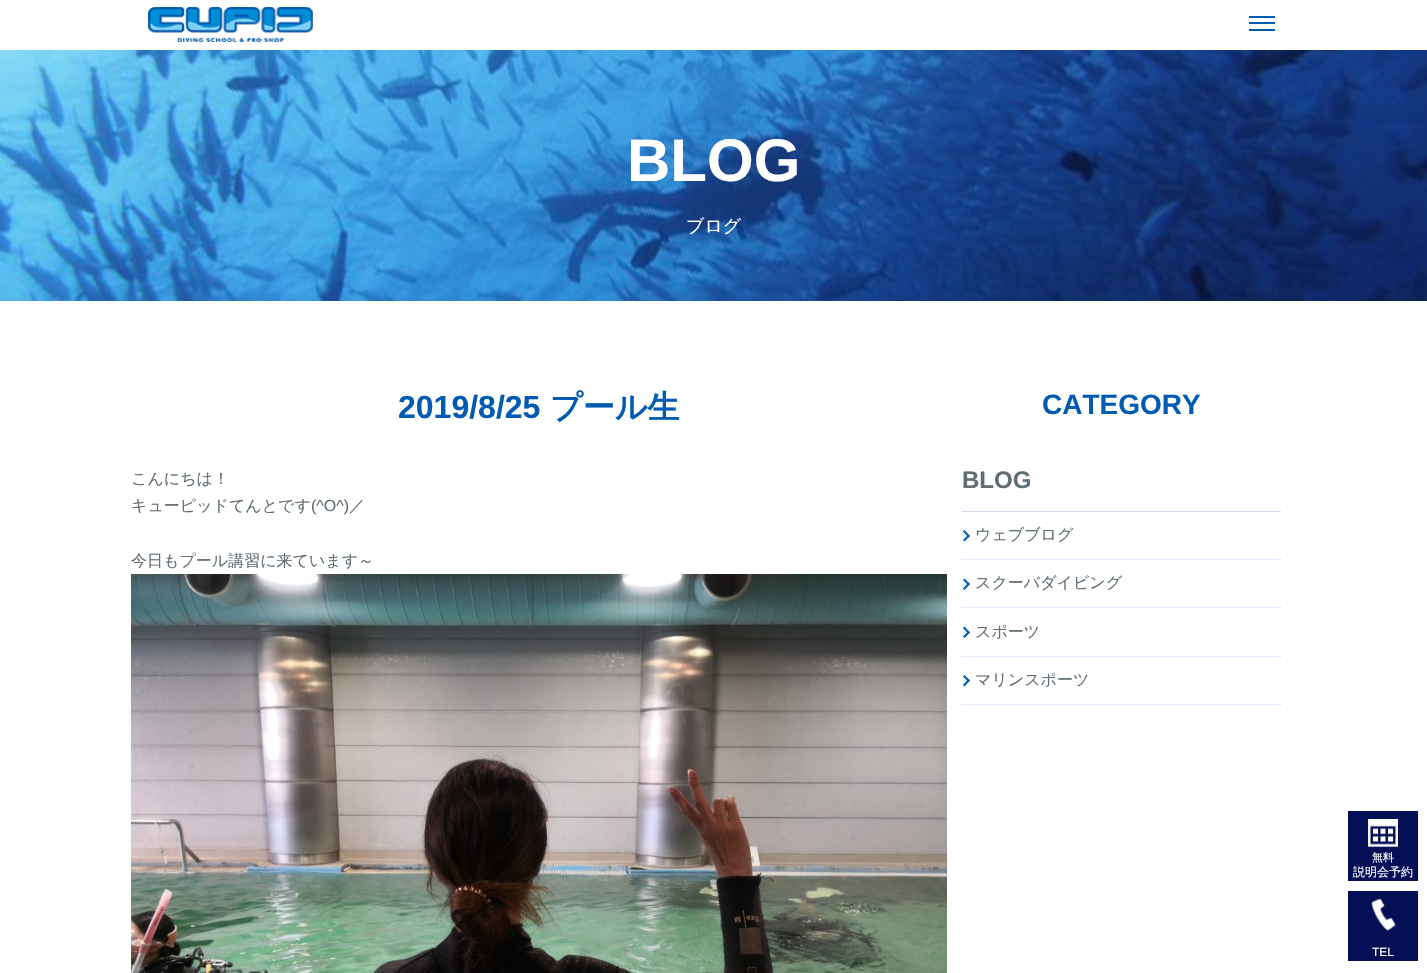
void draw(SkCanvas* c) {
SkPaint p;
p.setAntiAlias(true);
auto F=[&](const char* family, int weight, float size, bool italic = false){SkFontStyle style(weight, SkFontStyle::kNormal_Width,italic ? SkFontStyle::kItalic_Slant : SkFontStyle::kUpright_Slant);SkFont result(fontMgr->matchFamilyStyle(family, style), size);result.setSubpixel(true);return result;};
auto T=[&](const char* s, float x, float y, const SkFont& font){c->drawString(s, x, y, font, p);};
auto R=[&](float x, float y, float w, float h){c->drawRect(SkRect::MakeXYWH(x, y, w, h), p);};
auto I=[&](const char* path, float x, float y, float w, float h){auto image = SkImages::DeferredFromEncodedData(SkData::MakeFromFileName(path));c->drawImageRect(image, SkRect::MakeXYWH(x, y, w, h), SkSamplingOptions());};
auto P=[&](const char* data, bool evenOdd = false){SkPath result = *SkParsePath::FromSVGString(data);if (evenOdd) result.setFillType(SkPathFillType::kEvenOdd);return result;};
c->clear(0xffffffff);
I("1.png",148,7,165,35);
p.setColor(0xff015db2);
R(1249,22,26,2);
R(1249,16,26,2);
R(1249,29,26,2);
I("2.png",0,50,1427,251);
auto f1 = F("Liberation Sans",700,60);
p.setColor(0xffffffff);
T("BLOG",627,181,f1);
auto f2 = F("WenQuanYi Zen Hei",500,18);
T("ブログ",686,232,f2);
auto f3 = F("Liberation Sans",700,32);
p.setColor(0xff015bb3);
T("2019/8/25",398,418,f3);
auto f4 = F("WenQuanYi Zen Hei",700,32);
T("プール生",550,418,f4);
auto f5 = F("WenQuanYi Zen Hei",500,16);
p.setColor(0xff606d75);
T("こんにちは！",131,484,f5);
T("キューピッドてんとです",131,511,f5);
auto f6 = F("Liberation Sans",400,16);
T("(^O^)",311,511,f6);
T("／",349,511,f5);
T("今日もプール講習に来ています～",131,566,f5);
I("3.png",131,574,816,399);
auto f7 = F("Liberation Sans",700,28);
p.setColor(0xff015bb3);
T("CATEGORY",1042,414,f7);
p.setColor(0xffceddf1);
R(962,511,319,1);
auto f8 = F("Liberation Sans",700,24);
p.setColor(0xff606d75);
T("BLOG",962,488,f8);
p.setStroke(true);
p.setStrokeWidth(1);
p.setColor(0xffceddf1);
p.setPathEffect(SkDashPathEffect::Make({{1,1}}, 0));
c->drawPath(P("M962 559.5h319"),p);
p.setPathEffect(nullptr);
p.setStroke(false);
p.setColor(0xff015bb3);
c->drawPath(P("M964.5 530l5.5 6l-1.5 1.5l-5.5-6z"),p);
c->drawPath(P("M968.5 534.5l1.5 1.5l-5.5 5.5l-1.5-1.5z"),p);
p.setColor(0xff606d75);
T("ウェブブログ",975,540,f5);
p.setStroke(true);
p.setColor(0xffceddf1);
p.setPathEffect(SkDashPathEffect::Make({{1,1}}, 0));
c->drawPath(P("M962 607.5h319"),p);
p.setPathEffect(nullptr);
p.setStroke(false);
p.setColor(0xff015bb3);
c->drawPath(P("M964.5 578.5l5.5 5.5l-1.5 1.5l-5.5-5.5z"),p);
c->drawPath(P("M968.5 582.5l1.5 1.5l-5.5 6l-1.5-1.5z"),p);
p.setColor(0xff606d75);
T("スクーバダイビング",975,588,f5);
p.setStroke(true);
p.setColor(0xffceddf1);
p.setPathEffect(SkDashPathEffect::Make({{1,1}}, 0));
c->drawPath(P("M962 656.5h319"),p);
p.setPathEffect(nullptr);
p.setStroke(false);
p.setColor(0xff015bb3);
c->drawPath(P("M964.5 626.5l5.5 6l-1.5 1.5l-5.5-6z"),p);
c->drawPath(P("M968.5 631l1.5 1.5l-5.5 5.5l-1.5-1.5z"),p);
p.setColor(0xff606d75);
T("スポーツ",975,637,f5);
p.setStroke(true);
p.setColor(0xffceddf1);
p.setPathEffect(SkDashPathEffect::Make({{1,1}}, 0));
c->drawPath(P("M962 704.5h319"),p);
p.setPathEffect(nullptr);
p.setStroke(false);
p.setColor(0xff015bb3);
c->drawPath(P("M964.5 675l5.5 5.5l-1.5 1.5l-5.5-5.5z"),p);
c->drawPath(P("M968.5 679l1.5 1.5l-5.5 6l-1.5-1.5z"),p);
p.setColor(0xff606d75);
T("マリンスポーツ",975,685,f5);
p.setColor(0xff050f55);
R(1348,811,70,70);
I("4.png",1368,819,30,28);
auto f9 = F("WenQuanYi Zen Hei",500,11);
p.setColor(0xffffffff);
T("無料",1372,861,f9);
auto f10 = F("WenQuanYi Zen Hei",500,12);
T("説明会予約",1353,876,f10);
p.setColor(0xff050f55);
R(1348,891,70,70);
I("5.png",1371,899,25,32);
auto f11 = F("Liberation Sans",400,12);
p.setColor(0xffffffff);
T("TEL",1372,956,f11);
}
